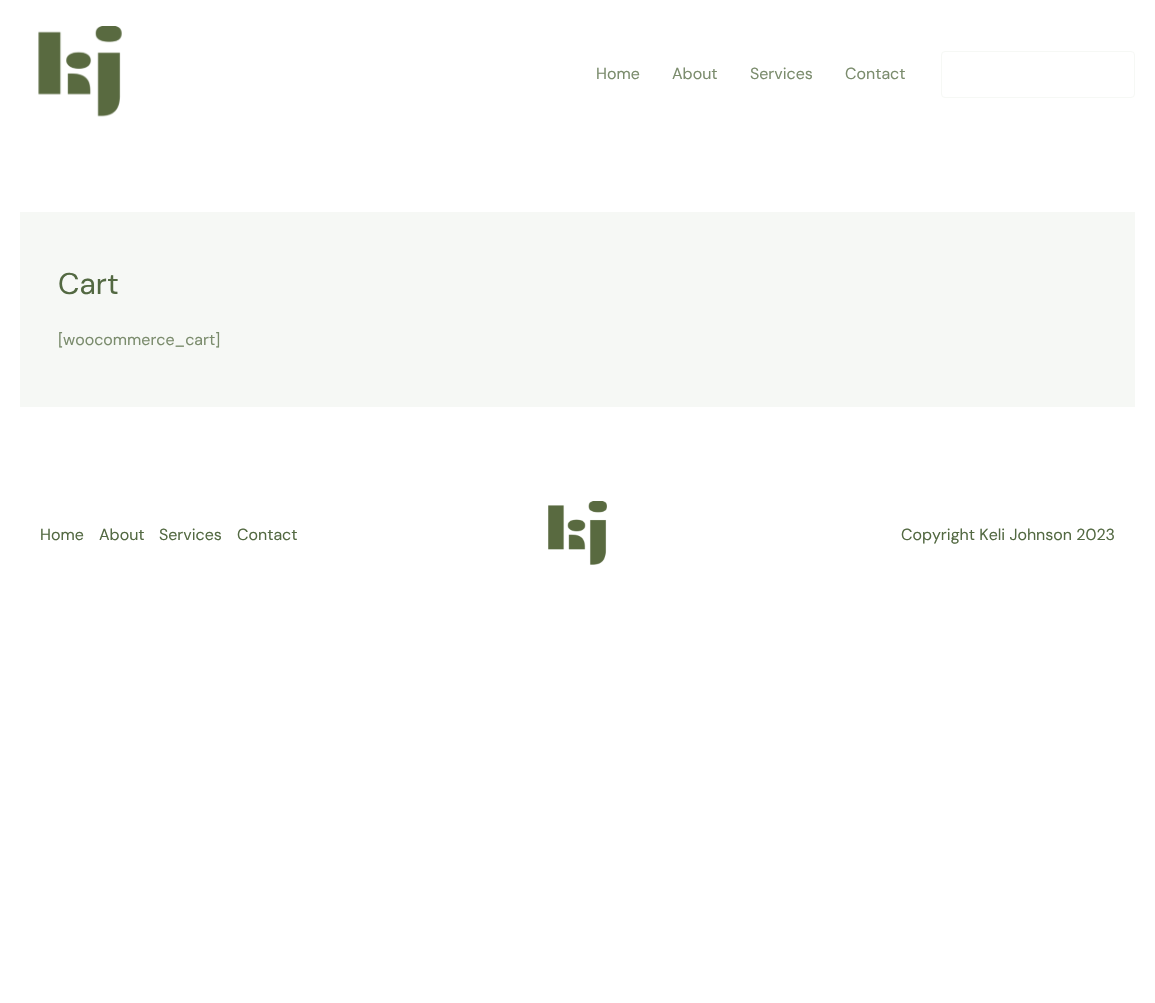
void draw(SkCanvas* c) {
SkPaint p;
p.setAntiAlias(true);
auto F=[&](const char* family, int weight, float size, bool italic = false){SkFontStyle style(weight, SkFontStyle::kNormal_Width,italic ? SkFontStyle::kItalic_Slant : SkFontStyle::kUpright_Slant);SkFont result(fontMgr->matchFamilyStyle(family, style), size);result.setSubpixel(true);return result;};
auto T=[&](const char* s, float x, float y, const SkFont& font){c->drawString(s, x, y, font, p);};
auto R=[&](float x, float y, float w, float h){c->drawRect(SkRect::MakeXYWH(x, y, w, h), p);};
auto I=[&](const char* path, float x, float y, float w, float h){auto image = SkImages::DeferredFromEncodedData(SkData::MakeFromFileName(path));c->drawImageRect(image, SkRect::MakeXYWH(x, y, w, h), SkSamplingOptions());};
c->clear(0xffffffff);
I("1.png",38,26,84,91);
auto f1 = F("DM Sans",400,16);
p.setColor(0xff7b8c6d);
T("Home",596,79,f1);
T("About",672,79,f1);
T("Services",750,79,f1);
T("Contact",845,79,f1);
p.setStroke(true);
p.setStrokeWidth(1);
p.setColor(0xfff6f8f5);
c->drawRoundRect(SkRect::MakeXYWH(941.5,51.5,193,46),3.5,3.5,p);
p.setStroke(false);
R(20,212,1115,195);
auto f2 = F("DM Sans",400,30);
p.setColor(0xff536942);
T("Cart",58,294,f2);
p.setColor(0xff7b8c6d);
T("[woocommerce_cart]",58,345,f1);
p.setColor(0xff536942);
T("Home",40,540,f1);
T("About",99,540,f1);
T("Services",159,540,f1);
T("Contact",237,540,f1);
I("2.png",548,501,59,64);
T("Copyright Keli Johnson 2023",901,540,f1);
}
